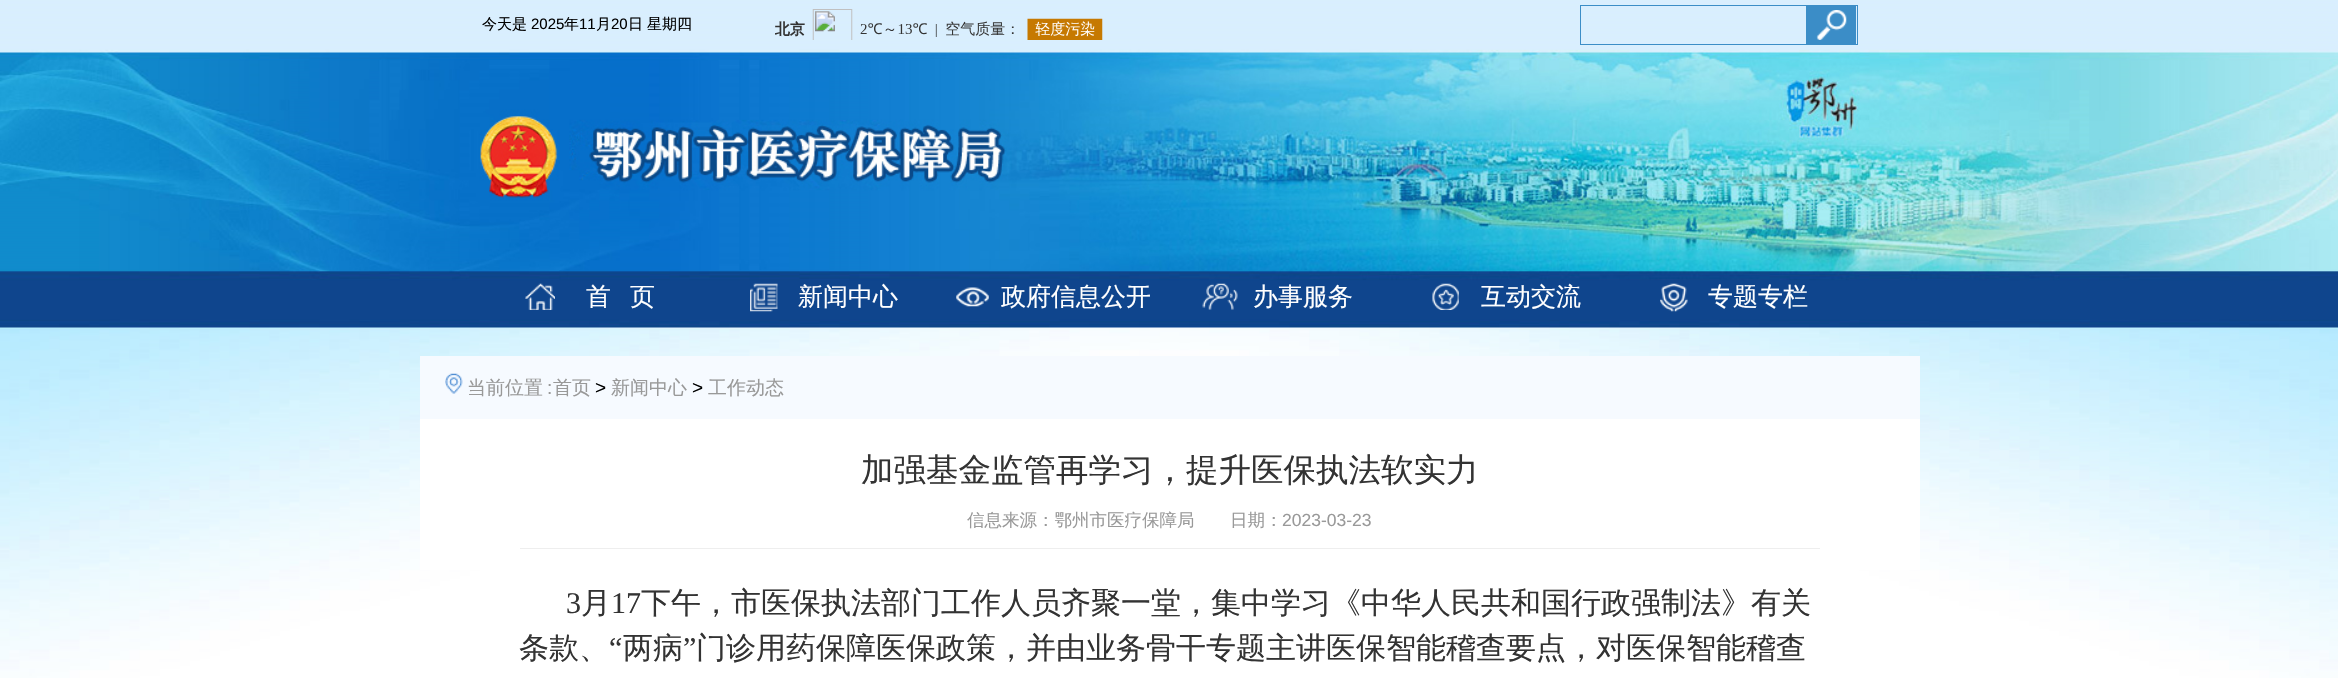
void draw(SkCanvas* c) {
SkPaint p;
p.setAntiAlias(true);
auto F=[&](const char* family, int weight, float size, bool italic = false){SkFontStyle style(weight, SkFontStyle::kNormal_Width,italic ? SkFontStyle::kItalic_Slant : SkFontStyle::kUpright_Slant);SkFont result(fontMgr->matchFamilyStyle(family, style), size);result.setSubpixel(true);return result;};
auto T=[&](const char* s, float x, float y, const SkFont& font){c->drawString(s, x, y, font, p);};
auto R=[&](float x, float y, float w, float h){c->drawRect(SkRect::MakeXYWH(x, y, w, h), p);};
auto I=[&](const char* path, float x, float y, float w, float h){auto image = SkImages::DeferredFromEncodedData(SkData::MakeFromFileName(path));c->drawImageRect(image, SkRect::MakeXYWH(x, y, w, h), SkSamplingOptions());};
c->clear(0xffffffff);
I("1.png",0,0,2338,678);
auto f1 = F("WenQuanYi Zen Hei",500,15);
p.setColor(0xff000000);
T("今天是",482,29,f1);
auto f2 = F("Liberation Sans",400,15);
T("2025",531,29,f2);
T("年",564,29,f1);
T("11",579,29,f2);
T("月",596,29,f1);
T("20",611,29,f2);
T("日",628,29,f1);
T("星期四",647,29,f1);
I("2.png",775,9,328,31);
p.setStroke(true);
p.setStrokeWidth(1);
p.setColor(0xff3b8dc7);
c->drawRect(SkRect::MakeXYWH(1580.5,5.5,277,39),p);
p.setStroke(false);
R(1806,6,50,38);
I("3.png",1816,10,31,30);
I("4.png",525,283,30,27);
auto f3 = F("WenQuanYi Zen Hei",500,25);
p.setColor(0xffffffff);
T("首",586,305,f3);
T("页",630,305,f3);
I("5.png",750,283,28,29);
T("新闻中心",798,305,f3);
I("6.png",956,287,33,20);
T("政府信息公开",1001,305,f3);
I("7.png",1202,283,36,27);
T("办事服务",1253,305,f3);
I("8.png",1432,283,27,27);
T("互动交流",1481,305,f3);
I("9.png",1660,283,28,29);
T("专题专栏",1708,305,f3);
p.setColor(0xfff6faff);
R(420,356,1500,63);
I("10.png",445,373,18,21);
auto f4 = F("WenQuanYi Zen Hei",500,19);
p.setColor(0xff999999);
T("当前位置",467,394,f4);
auto f5 = F("Liberation Sans",400,19);
T(":",547,394,f5);
T("首页",553,394,f4);
p.setColor(0xff000000);
T(">",595,394,f5);
p.setColor(0xff999999);
T("新闻中心",611,394,f4);
p.setColor(0xff000000);
T(">",692,394,f5);
p.setColor(0xff999999);
T("工作动态",708,394,f4);
p.setColor(0xffffffff);
R(420,419,1500,151);
p.setColor(0xffeeeeee);
R(520,548,1300,1);
auto f6 = F("WenQuanYi Zen Hei",500,32.5);
p.setColor(0xff333333);
T("加强基金监管再学习，提升医保执法软实力",861,481,f6);
auto f7 = F("WenQuanYi Zen Hei",500,17.5);
p.setColor(0xff999999);
T("信息来源：鄂州市医疗保障局",967,526,f7);
T("日期：",1230,526,f7);
auto f8 = F("Liberation Sans",400,17.5);
T("2023-03-23",1282,526,f8);
auto f9 = F("Liberation Serif",400,30);
p.setColor(0xff333333);
T("3",566,613,f9);
auto f10 = F("WenQuanYi Zen Hei",500,30);
T("月",581,613,f10);
T("17",611,613,f9);
T("下午，市医保执法部门工作人员齐聚一堂，集中学习《中华人民共和国行政强制法》有关",641,613,f10);
T("条款、",519,658,f10);
T("“",609,658,f9);
T("两病",623,658,f10);
T("”",683,658,f9);
T("门诊用药保障医保政策，并由业务骨干专题主讲医保智能稽查要点，对医保智能稽查",696,658,f10);
}
